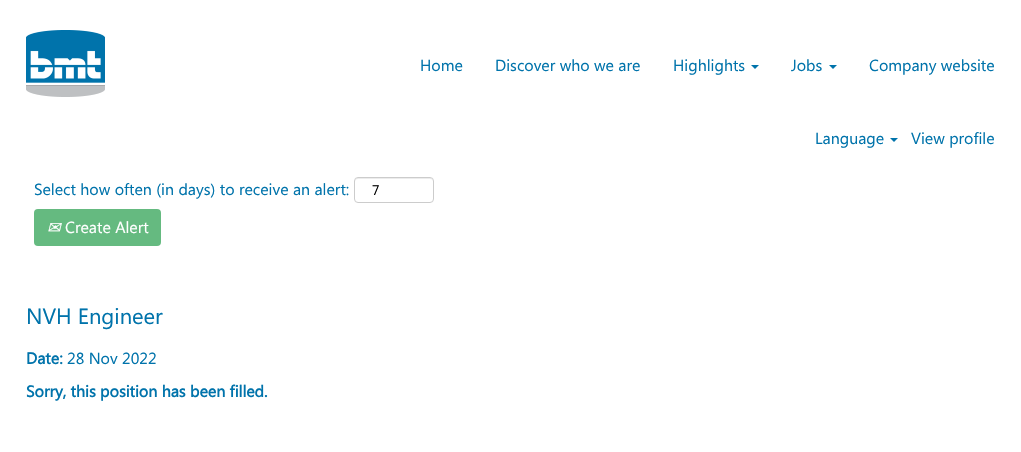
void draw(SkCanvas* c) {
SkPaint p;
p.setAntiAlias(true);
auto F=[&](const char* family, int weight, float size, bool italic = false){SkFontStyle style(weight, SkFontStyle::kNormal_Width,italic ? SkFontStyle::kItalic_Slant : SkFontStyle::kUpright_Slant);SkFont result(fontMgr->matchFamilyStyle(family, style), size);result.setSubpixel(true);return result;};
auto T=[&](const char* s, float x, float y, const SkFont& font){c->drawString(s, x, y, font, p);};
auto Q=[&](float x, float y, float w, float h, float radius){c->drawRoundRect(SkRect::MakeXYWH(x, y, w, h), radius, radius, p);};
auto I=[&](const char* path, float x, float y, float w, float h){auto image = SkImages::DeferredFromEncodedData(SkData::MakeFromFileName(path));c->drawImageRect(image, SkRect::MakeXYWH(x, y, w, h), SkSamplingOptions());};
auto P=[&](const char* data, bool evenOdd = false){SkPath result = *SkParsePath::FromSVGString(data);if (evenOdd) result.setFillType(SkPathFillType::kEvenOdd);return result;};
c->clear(0xffffffff);
I("1.png",26,30,79,67);
auto f1 = F("Segoe UI",400,16);
p.setColor(0xff0073ab);
T("Home",420,71,f1);
T("Discover who we are",495,71,f1);
T("Highlights",673,71,f1);
c->drawPath(P("M751 65h8l-4 4z"),p);
T("Jobs",791,71,f1);
c->drawPath(P("M829 65h8l-4 4z"),p);
T("Company website",869,71,f1);
T("Language",815,144,f1);
c->drawPath(P("M890 138h8l-4 4z"),p);
T("View profile",911,144,f1);
T("Select how often (in days) to receive an alert:",34,195,f1);
p.setColor(0xffececec);
c->drawPath(P("M358 179h72c2 0 3 1 3 3c0-7-11-4-15-4h-48c-4 0-15-3-15 4c0-2 1-3 3-3z"),p);
p.setStroke(true);
p.setStrokeWidth(1);
p.setColor(0xffcccccc);
c->drawRoundRect(SkRect::MakeXYWH(354.5,177.5,79,25),3.5,3.5,p);
auto f2 = F("Segoe UI",400,14);
p.setStroke(false);
p.setColor(0xff000000);
T("7",372,195,f2);
p.setColor(0xff65ba80);
Q(34,209,127,37,4);
auto f3 = F("DejaVu Sans",400,16,true);
p.setColor(0xffffffff);
T("✉",47,233,f3);
T("Create Alert",65,233,f1);
auto f4 = F("Segoe UI",400,22);
p.setColor(0xff0073ab);
T("NVH Engineer",26,324,f4);
auto f5 = F("Segoe UI",700,16);
T("Date:",26,364,f5);
T("28 Nov 2022",67,364,f1);
T("Sorry, this position has been filled.",26,397,f5);
}
